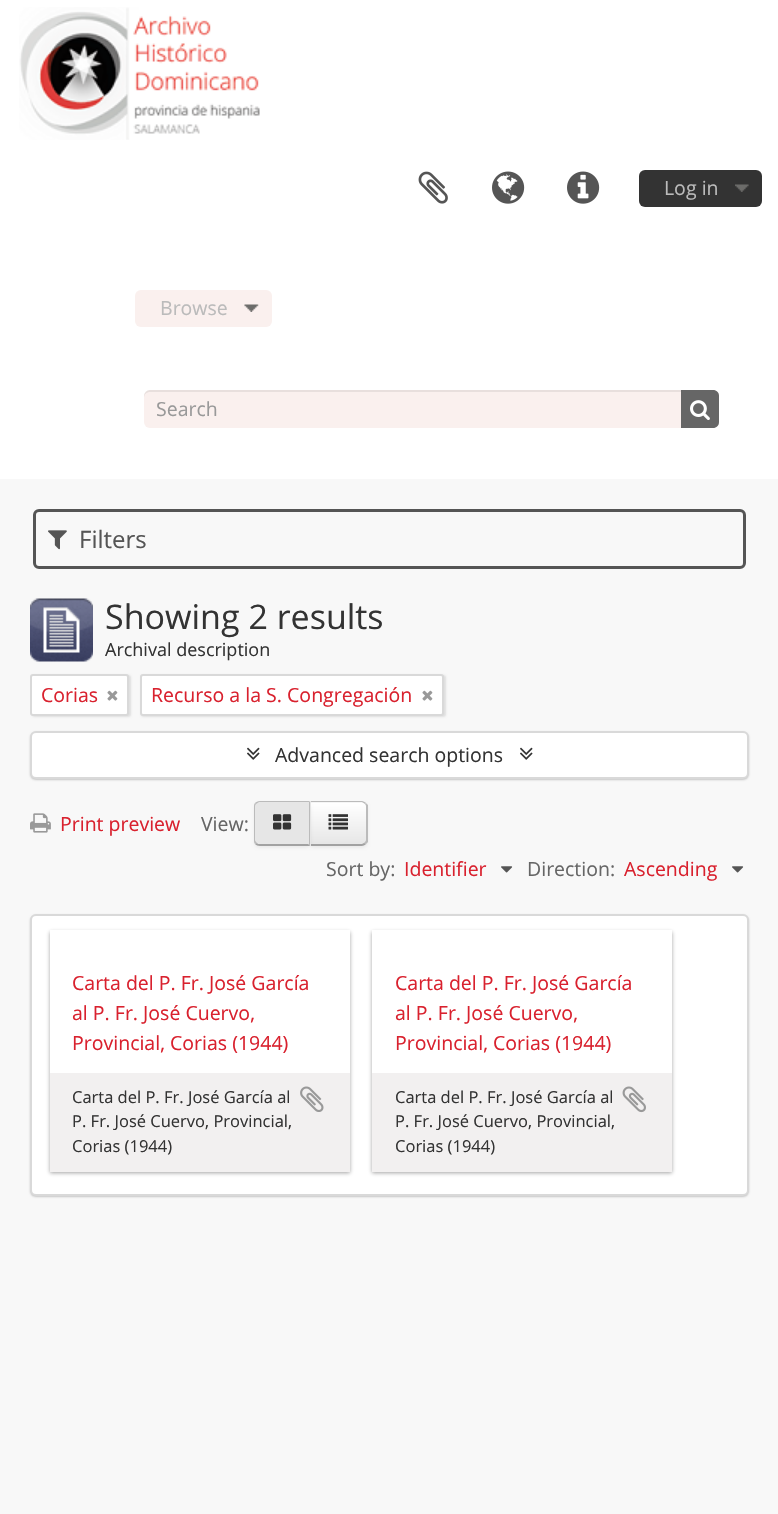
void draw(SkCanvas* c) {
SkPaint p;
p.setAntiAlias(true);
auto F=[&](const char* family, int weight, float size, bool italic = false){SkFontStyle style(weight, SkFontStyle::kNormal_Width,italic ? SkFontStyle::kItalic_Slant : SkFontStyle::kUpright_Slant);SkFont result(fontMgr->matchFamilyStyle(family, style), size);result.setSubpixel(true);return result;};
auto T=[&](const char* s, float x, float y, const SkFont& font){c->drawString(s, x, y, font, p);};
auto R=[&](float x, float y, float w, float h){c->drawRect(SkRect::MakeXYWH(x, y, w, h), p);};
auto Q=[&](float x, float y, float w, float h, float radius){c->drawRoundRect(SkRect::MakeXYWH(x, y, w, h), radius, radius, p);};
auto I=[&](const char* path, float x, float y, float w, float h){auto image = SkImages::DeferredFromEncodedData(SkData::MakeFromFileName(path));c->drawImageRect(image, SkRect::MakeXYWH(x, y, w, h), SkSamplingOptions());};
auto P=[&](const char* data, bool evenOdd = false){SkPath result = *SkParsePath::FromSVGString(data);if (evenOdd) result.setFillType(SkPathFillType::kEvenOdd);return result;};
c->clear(0xfff8f8f8);
p.setColor(0xffffffff);
R(0,0,778,479);
I("1.png",19,7,241,133);
I("2.png",418,171,30,33);
I("3.png",492,171,33,33);
I("4.png",567,171,33,33);
p.setColor(0xff333333);
Q(639,170,123,37,6);
I("5.png",735,184,14,8);
auto f1 = F("Open Sans",400,19.5);
p.setColor(0xffbbbbbb);
T("Log in",664,195,f1);
p.setColor(0xfffaf0ee);
Q(135,290,137,37,6);
I("6.png",244,304,15,8);
p.setColor(0xffbbbbbb);
T("Browse",160,315,f1);
p.setColor(0xfffaf0ee);
Q(144,390,575,38,6);
p.setColor(0x12000000);
c->drawPath(P("M150 392h562c4 0 6 2 6 6v25c0 1 0 2-1 3c1-1 2-2 2-4v-26c0-3-3-6-6-6h-563c-3 0-6 3-6 6v2c0-4 3-6 6-6z"),p);
p.setColor(0xff999999);
T("Search",156,416,f1);
p.setColor(0xff666666);
c->drawPath(P("M681 390h32c3.5 0 6 2.5 6 6v26c0 3.5-2.5 6-6 6h-32z"),p);
I("7.png",690,400,20,20);
p.setStroke(true);
p.setStrokeWidth(3);
p.setColor(0xff555555);
c->drawRoundRect(SkRect::MakeXYWH(34.5,510.5,710,57),4.5,4.5,p);
I("8.png",48,530,19,20);
auto f2 = F("Open Sans",400,24);
p.setStroke(false);
T("Filters",79,548,f2);
I("9.png",30,598,63,64);
auto f3 = F("Open Sans",400,34);
p.setColor(0xff333333);
T("Showing 2 results",105,629,f3);
auto f4 = F("Open Sans",400,18);
T("Archival description",105,656,f4);
p.setColor(0x1a000000);
p.setMaskFilter(SkMaskFilter::MakeBlur(kNormal_SkBlurStyle, 1));
c->drawRoundRect(SkRect::MakeXYWH(32,675,99,42),3,3,p);
p.setMaskFilter(nullptr);
p.setColor(0xffffffff);
c->drawRoundRect(SkRect::MakeXYWH(31,675,97,40),2,2,p);
p.setStroke(true);
p.setStrokeWidth(2);
p.setColor(0xffd9d9d9);
c->drawRoundRect(SkRect::MakeXYWH(31,675,97,40),2,2,p);
p.setStroke(false);
p.setColor(0xffd9212e);
T("Corias",41,702,f1);
I("10.png",107,690,11,11);
p.setColor(0x1a000000);
p.setMaskFilter(SkMaskFilter::MakeBlur(kNormal_SkBlurStyle, 1));
c->drawRoundRect(SkRect::MakeXYWH(141,675,305,42),3,3,p);
p.setMaskFilter(nullptr);
p.setColor(0xffffffff);
c->drawRoundRect(SkRect::MakeXYWH(141,675,302,40),2,2,p);
p.setStroke(true);
p.setColor(0xffd9d9d9);
c->drawRoundRect(SkRect::MakeXYWH(141,675,302,40),2,2,p);
p.setStroke(false);
p.setColor(0xffd9212e);
T("Recurso a la S. Congregación",151,702,f1);
I("10.png",422,690,11,11);
p.setColor(0x33000000);
p.setMaskFilter(SkMaskFilter::MakeBlur(kNormal_SkBlurStyle, 1));
c->drawRoundRect(SkRect::MakeXYWH(30,732,719,48),6,6,p);
p.setMaskFilter(nullptr);
p.setColor(0xffffffff);
c->drawRoundRect(SkRect::MakeXYWH(31,732,717,46),5,5,p);
p.setStroke(true);
p.setColor(0xffd9d9d9);
c->drawRoundRect(SkRect::MakeXYWH(31,732,717,46),5,5,p);
I("11.png",247,747,13,13);
p.setStroke(false);
p.setColor(0xff333333);
T("Advanced search options",275,762,f1);
I("11.png",520,747,13,13);
I("12.png",30,813,21,20);
p.setColor(0xffd9212e);
T("Print preview",60,831,f1);
p.setColor(0xff666666);
T("View:",201,831,f1);
p.setColor(0x0d000000);
p.setMaskFilter(SkMaskFilter::MakeBlur(kNormal_SkBlurStyle, 1.5));
c->drawRoundRect(SkRect::MakeXYWH(309,803,59,45),6,6,p);
p.setMaskFilter(nullptr);
p.setColor(0xfff5f5f5);
c->drawPath(P("M309 801h53c3.5 0 6 2.5 6 6v33c0 3.5-2.5 6-6 6h-53z"),p);
c->save();
c->clipPath(P("M309 801h53c3.5 0 6 2.5 6 6v33c0 3.5-2.5 6-6 6h-53z"),true);
{
const SkColor colors[] = {0xffffffff,0xffe6e6e6};
const float stops[] = {0,1};
const SkPoint ends[] = {{338,803}, {338,845}};
p.setShader(SkGradientShader::MakeLinear(ends, colors, stops, 2, SkTileMode::kClamp));
p.setAlpha(255);
}
R(311,803,57,42);
c->restore();
p.setShader(nullptr);
p.setColor(0xffbbbbbb);
c->drawPath(P("M309 801l1 1h52l3 2l1-1c-1-1-3-2-4-2z"),p);
c->drawPath(P("M368 842l-2 2l-2-1c1-1 2-2 2-3v-33c0-1 0-2-1-3l1-1l2 2z"),p);
p.setColor(0xffa2a2a2);
c->drawPath(P("M362 846c1 0 3-1 4-2l-2-1l-2 1h-51l-2 2z"),p);
p.setColor(0x0d000000);
p.setMaskFilter(SkMaskFilter::MakeBlur(kNormal_SkBlurStyle, 1.5));
c->drawRoundRect(SkRect::MakeXYWH(254,803,57,45),6,6,p);
p.setMaskFilter(nullptr);
p.setColor(0xffe6e6e6);
c->drawPath(P("M260 801h51v45h-51c-3.5 0-6-2.5-6-6v-33c0-3.5 2.5-6 6-6z"),p);
p.setColor(0xffbbbbbb);
c->drawPath(P("M260 801c-2 0-4 1-5 2l1 1l3-2h50l1-1z"),p);
c->drawPath(P("M310 802v44l-2-2h1v-42z"),p);
p.setColor(0xffa2a2a2);
c->drawPath(P("M260 846h50l-2-2h-48c-1 0-3 0-3-1l-2 1c1 1 3 2 5 2z"),p);
p.setColor(0xffbbbbbb);
c->drawPath(P("M255 803c-1 1-1 3-1 4v33c0 1 0 3 1 4l2-1c-1-1-2-2-2-3v-33c0-1 0-2 1-3z"),p);
I("13.png",273,814,19,16);
I("14.png",328,814,20,16);
p.setColor(0xff666666);
T("Sort by:",326,876,f1);
p.setColor(0xffd9212e);
T("Identifier",404,876,f1);
I("15.png",501,866,12,7);
p.setColor(0xff666666);
T("Direction:",527,876,f1);
p.setColor(0xffd9212e);
T("Ascending",624,876,f1);
I("15.png",732,866,12,7);
p.setColor(0x33000000);
p.setMaskFilter(SkMaskFilter::MakeBlur(kNormal_SkBlurStyle, 1));
c->drawRoundRect(SkRect::MakeXYWH(30,915,719,282),6,6,p);
p.setMaskFilter(nullptr);
p.setColor(0xffffffff);
c->drawRoundRect(SkRect::MakeXYWH(31,915,717,280),5,5,p);
p.setStroke(true);
p.setColor(0xffd9d9d9);
c->drawRoundRect(SkRect::MakeXYWH(31,915,717,280),5,5,p);
p.setStroke(false);
p.setColor(0x66191919);
p.setMaskFilter(SkMaskFilter::MakeBlur(kNormal_SkBlurStyle, 2));
c->drawRect(SkRect::MakeXYWH(50,932,300,241),p);
p.setMaskFilter(nullptr);
p.setColor(0xffffffff);
R(50,930,300,143);
p.setColor(0xffd9212e);
T("Carta del P. Fr. José García",72,990,f1);
T("al P. Fr. José Cuervo,",72,1020,f1);
T("Provincial, Corias (1944)",72,1050,f1);
p.setColor(0xfff2f0f0);
R(50,1073,300,99);
auto f5 = F("Open Sans",400,16.5);
p.setColor(0xff333333);
T("Carta del P. Fr. José García al",72,1103,f5);
I("16.png",300,1086,24,26);
T("P. Fr. José Cuervo, Provincial,",72,1127,f5);
T("Corias (1944)",72,1152,f5);
p.setColor(0x66191919);
p.setMaskFilter(SkMaskFilter::MakeBlur(kNormal_SkBlurStyle, 2));
c->drawRect(SkRect::MakeXYWH(372,932,300,241),p);
p.setMaskFilter(nullptr);
p.setColor(0xffffffff);
R(372,930,300,143);
p.setColor(0xffd9212e);
T("Carta del P. Fr. José García",395,990,f1);
T("al P. Fr. José Cuervo,",395,1020,f1);
T("Provincial, Corias (1944)",395,1050,f1);
p.setColor(0xfff2f0f0);
R(372,1073,300,99);
p.setColor(0xff333333);
T("Carta del P. Fr. José García al",395,1103,f5);
I("17.png",622,1086,24,27);
T("P. Fr. José Cuervo, Provincial,",395,1127,f5);
T("Corias (1944)",395,1152,f5);
}
